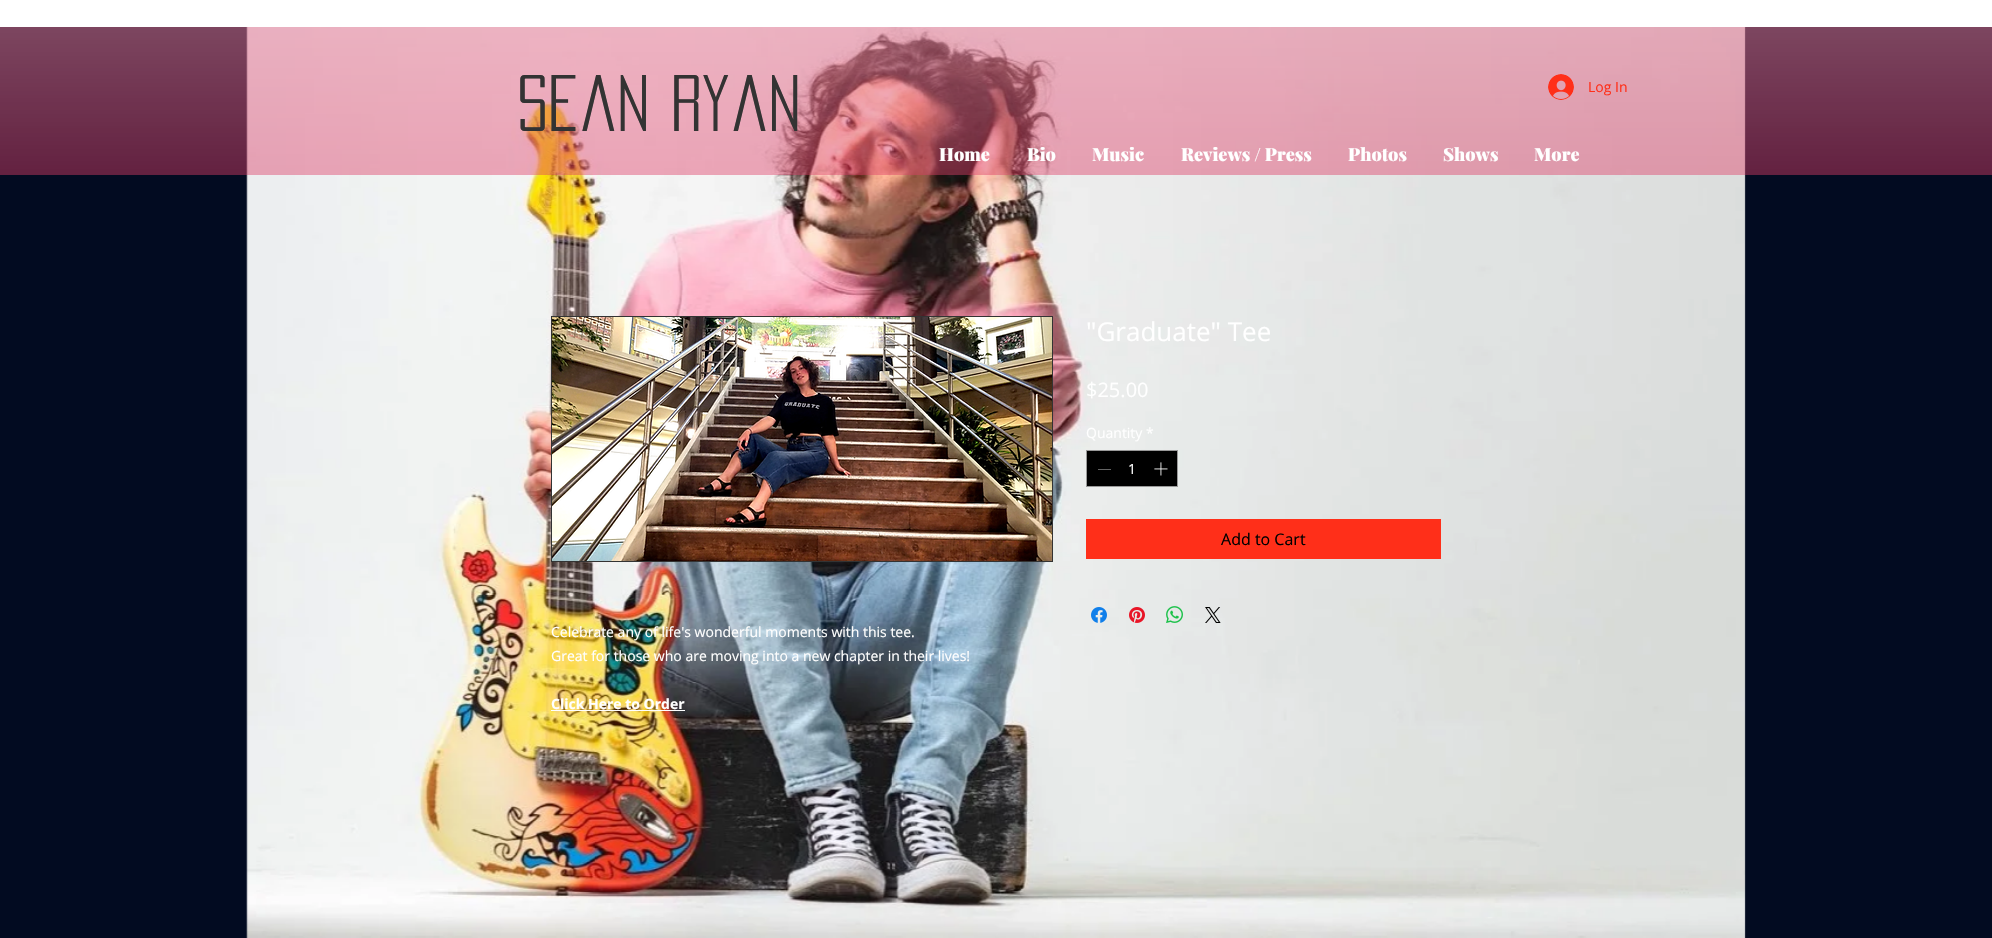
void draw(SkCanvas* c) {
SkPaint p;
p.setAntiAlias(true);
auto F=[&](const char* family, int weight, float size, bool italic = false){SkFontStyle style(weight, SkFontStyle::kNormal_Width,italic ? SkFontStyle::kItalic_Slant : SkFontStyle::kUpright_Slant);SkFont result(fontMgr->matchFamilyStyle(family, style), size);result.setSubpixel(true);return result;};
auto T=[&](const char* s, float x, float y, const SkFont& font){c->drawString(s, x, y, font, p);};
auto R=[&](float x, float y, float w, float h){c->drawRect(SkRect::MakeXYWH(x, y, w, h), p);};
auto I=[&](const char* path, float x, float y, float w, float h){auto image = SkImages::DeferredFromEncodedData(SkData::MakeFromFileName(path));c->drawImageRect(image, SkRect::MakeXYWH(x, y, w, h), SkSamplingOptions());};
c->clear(0xff020b21);
I("1.png",246,27,1500,911);
p.setColor(0x63d61043);
R(0,27,1992,148);
I("2.png",0,27,1992,148);
p.setColor(0xffffffff);
R(0,0,1992,27);
auto f1 = F("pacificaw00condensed",400,70);
p.setColor(0xff333333);
T("Sean Ryan",517,131,f1);
I("3.png",1548,74,26,26);
auto f2 = F("Open Sans",400,14);
p.setColor(0xffff2f19);
T("Log In",1588,92,f2);
auto f3 = F("Playfair Display",900,18);
p.setColor(0xffffffff);
T("Home",939,161,f3);
T("Bio",1027,161,f3);
T("Music",1092,161,f3);
T("Reviews / Press",1181,161,f3);
T("Photos",1348,161,f3);
T("Shows",1443,161,f3);
T("More",1534,161,f3);
auto f4 = F("Open Sans",400,26);
T("\"Graduate\" Tee",1086,341,f4);
auto f5 = F("Open Sans",400,20);
T("$25.00",1086,397,f5);
T("Quantity",1086,438,f2);
T("*",1146,438,f2);
p.setColor(0xff000000);
c->drawRect(SkRect::MakeXYWH(1086.5,450.5,91,36),p);
p.setStroke(true);
p.setStrokeWidth(1);
p.setColor(0xff999999);
c->drawRect(SkRect::MakeXYWH(1086.5,450.5,91,36),p);
p.setStroke(false);
p.setColor(0xff646464);
R(1098,469,13,1);
p.setColor(0xffffffff);
T("1",1128,474,f2);
I("4.png",1154,462,14,14);
p.setColor(0xffff2f19);
R(1086,519,355,40);
auto f6 = F("Open Sans",400,16);
p.setColor(0xff000000);
T("Add to Cart",1221,545,f6);
I("5.png",1091,607,16,16);
I("6.png",1129,607,16,16);
I("7.png",1166,606,17,17);
I("8.png",1205,607,16,16);
p.setStroke(true);
p.setColor(0xff333333);
c->drawRect(SkRect::MakeXYWH(551.5,316.5,501,245),p);
I("9.png",552,317,500,244);
p.setStroke(false);
p.setColor(0xffffffff);
T("Celebrate any of life's wonderful moments with this tee.",551,637,f2);
T("Great for those who are moving into a new chapter in their lives!",551,661,f2);
auto f7 = F("Open Sans",700,14);
T("Click Here to Order",551,709,f7);
R(551,710,134,1);
}
